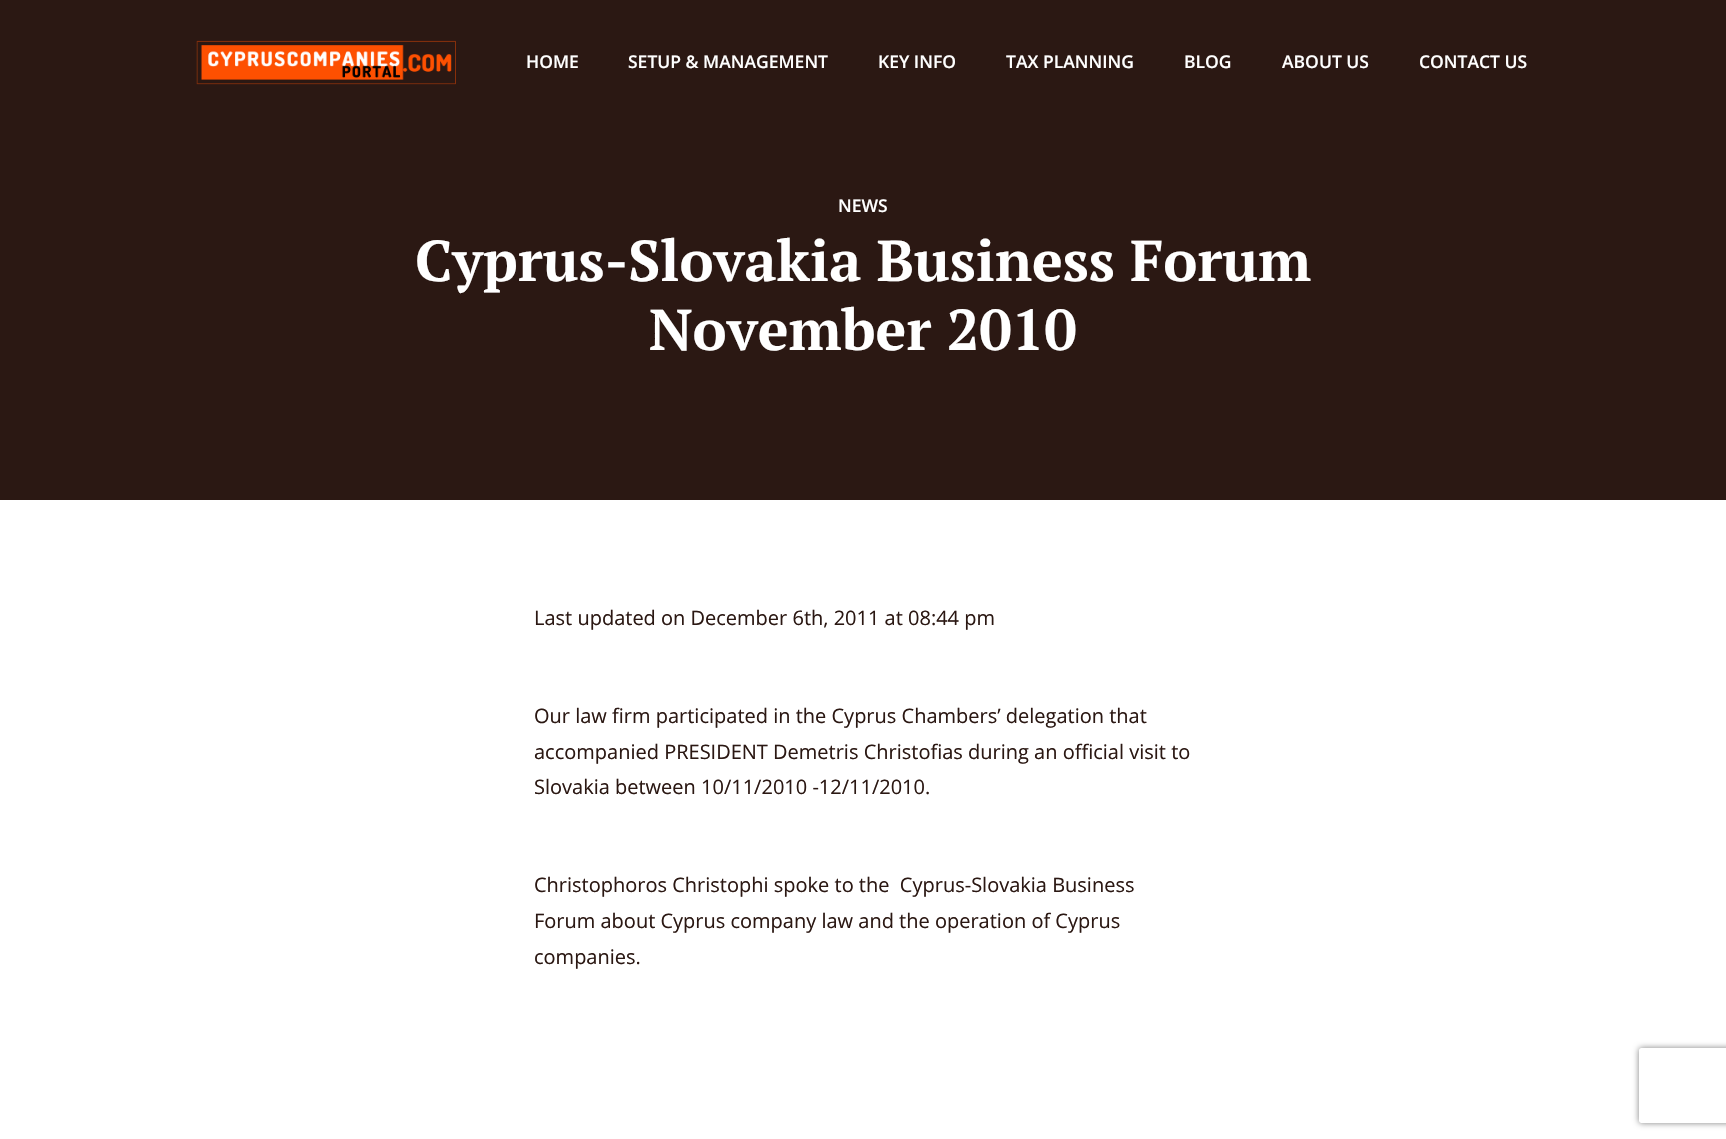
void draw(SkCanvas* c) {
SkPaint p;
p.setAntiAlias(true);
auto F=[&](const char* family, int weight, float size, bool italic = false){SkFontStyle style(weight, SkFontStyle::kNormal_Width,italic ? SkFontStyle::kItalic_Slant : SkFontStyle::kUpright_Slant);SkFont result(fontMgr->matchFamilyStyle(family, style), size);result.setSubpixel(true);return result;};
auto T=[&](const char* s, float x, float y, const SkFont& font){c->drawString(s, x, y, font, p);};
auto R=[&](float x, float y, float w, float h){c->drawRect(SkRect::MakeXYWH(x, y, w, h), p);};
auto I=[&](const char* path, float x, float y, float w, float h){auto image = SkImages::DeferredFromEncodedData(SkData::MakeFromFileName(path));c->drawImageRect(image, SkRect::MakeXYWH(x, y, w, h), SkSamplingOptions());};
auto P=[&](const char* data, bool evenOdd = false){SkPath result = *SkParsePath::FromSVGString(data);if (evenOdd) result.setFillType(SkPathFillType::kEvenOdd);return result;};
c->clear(0xffffffff);
p.setColor(0xff2b1813);
R(0,0,1726,500);
I("1.png",196,40,260,45);
auto f1 = F("Open Sans",600,17.5);
p.setColor(0xffffffff);
T("HOME",526,68,f1);
T("SETUP & MANAGEMENT",628,68,f1);
T("KEY INFO",878,68,f1);
T("TAX PLANNING",1006,68,f1);
T("BLOG",1184,68,f1);
T("ABOUT US",1282,68,f1);
T("CONTACT US",1419,68,f1);
T("NEWS",838,212,f1);
auto f2 = F("PT Serif",700,57.5);
T("Cyprus-Slovakia Business Forum",415,281,f2);
T("November 2010",649,350,f2);
auto f3 = F("Open Sans",400,20);
p.setColor(0xff2b1813);
T("Last updated on December 6th, 2011 at 08:44 pm",534,625,f3);
T("Our law firm participated in the Cyprus Chambers’ delegation that",534,723,f3);
T("accompanied PRESIDENT Demetris Christofias during an official visit to",534,759,f3);
T("Slovakia between 10/11/2010 -12/11/2010.",534,794,f3);
T("Christophoros Christophi spoke to the  Cyprus-Slovakia Business",534,892,f3);
T("Forum about Cyprus company law and the operation of Cyprus",534,928,f3);
T("companies.",534,964,f3);
c->save();
c->clipPath(P("M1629 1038h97v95h-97zm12.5 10h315c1.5 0 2.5 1 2.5 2.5v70c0 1.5-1 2.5-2.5 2.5h-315c-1.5 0-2.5-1-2.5-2.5v-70c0-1.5 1-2.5 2.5-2.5z",true),true);
p.setColor(0xff808080);
p.setMaskFilter(SkMaskFilter::MakeBlur(kNormal_SkBlurStyle, 3));
c->drawRoundRect(SkRect::MakeXYWH(1639,1048,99,75),2.5,2.5,p);
p.setMaskFilter(nullptr);
c->restore();
}
